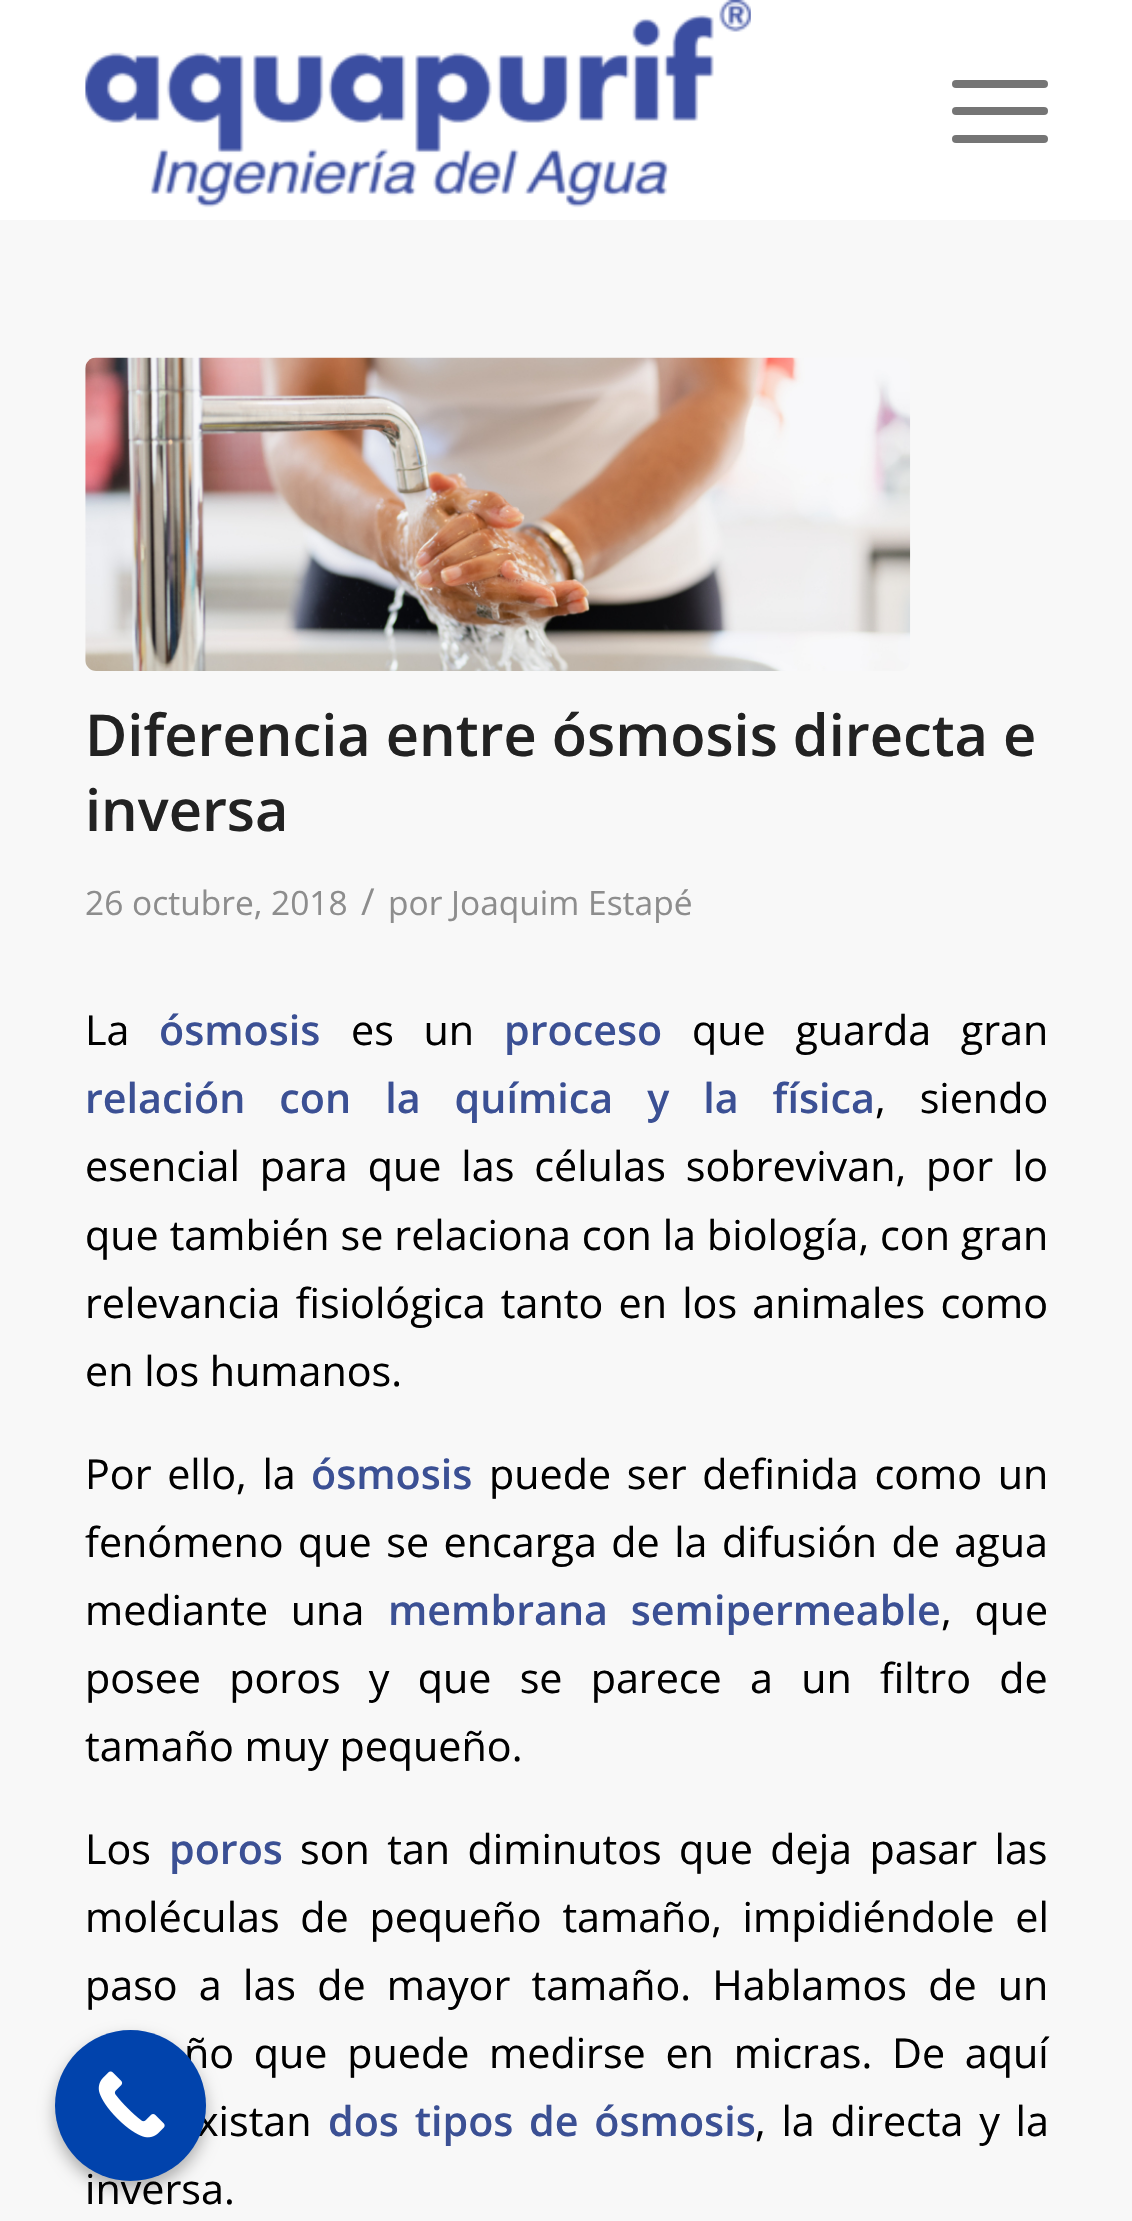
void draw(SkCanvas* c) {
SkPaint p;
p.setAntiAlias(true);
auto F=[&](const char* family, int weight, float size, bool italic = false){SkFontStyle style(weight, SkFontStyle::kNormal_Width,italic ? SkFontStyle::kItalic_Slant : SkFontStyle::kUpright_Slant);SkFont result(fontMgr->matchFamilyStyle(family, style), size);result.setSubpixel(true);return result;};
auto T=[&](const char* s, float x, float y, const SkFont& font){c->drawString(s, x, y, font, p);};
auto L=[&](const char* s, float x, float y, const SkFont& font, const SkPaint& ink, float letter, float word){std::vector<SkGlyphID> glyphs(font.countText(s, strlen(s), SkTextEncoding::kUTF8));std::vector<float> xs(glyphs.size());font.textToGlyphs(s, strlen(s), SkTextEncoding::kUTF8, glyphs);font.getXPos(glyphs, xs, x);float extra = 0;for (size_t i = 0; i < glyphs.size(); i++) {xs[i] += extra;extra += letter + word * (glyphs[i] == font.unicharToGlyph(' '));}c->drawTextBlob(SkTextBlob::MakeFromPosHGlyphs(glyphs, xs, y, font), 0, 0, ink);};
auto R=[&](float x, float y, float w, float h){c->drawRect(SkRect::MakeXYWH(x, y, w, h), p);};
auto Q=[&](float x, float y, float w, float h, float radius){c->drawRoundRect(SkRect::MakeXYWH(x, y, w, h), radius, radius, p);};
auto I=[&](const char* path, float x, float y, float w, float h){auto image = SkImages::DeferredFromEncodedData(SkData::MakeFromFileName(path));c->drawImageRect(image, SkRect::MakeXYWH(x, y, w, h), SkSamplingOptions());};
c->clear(0xfff8f8f8);
p.setColor(0xffffffff);
R(0,0,1132,220);
I("1.png",85,0,666,208);
p.setColor(0xff757575);
Q(952,107,96,8,4);
Q(952,80,96,8,4);
Q(952,135,96,8,4);
I("2.png",85,357,826,314);
auto f1 = F("Open Sans",600,57.75);
p.setColor(0xff222222);
T("Diferencia entre ósmosis directa e",85,756,f1);
T("inversa",85,831,f1);
auto f2 = F("Open Sans",400,33.5);
p.setColor(0xff8d8d8d);
T("26 octubre, 2018",85,915,f2);
auto f3 = F("Open Sans",400,37);
T("/",361,915,f3);
T("por Joaquim Estapé",388,915,f2);
auto f4 = F("Open Sans",400,41.25);
p.setColor(0xff000000);
T("La",85,1045,f4);
auto f5 = F("Open Sans",600,41.25);
p.setColor(0xff3b5094);
T("ósmosis",159,1045,f5);
p.setColor(0xff000000);
L("es un",351,1045,f4,p,0,19);
p.setColor(0xff3b5094);
T("proceso",504,1045,f5);
p.setColor(0xff000000);
L("que guarda gran",692,1045,f4,p,0,19);
p.setColor(0xff3b5094);
L("relación con la química y la física",85,1113,f5,p,0,23.25);
p.setColor(0xff000000);
L(", siendo",875,1113,f4,p,0,23.25);
L("esencial para que las células sobrevivan, por lo",85,1181,f4,p,0,9.25);
L("que también se relaciona con la biología, con gran",85,1250,f4,p,0,.25);
L("relevancia fisiológica tanto en los animales como",85,1318,f4,p,0,4.5);
T("en los humanos.",85,1386,f4);
L("Por ello, la",85,1489,f4,p,0,5);
p.setColor(0xff3b5094);
T("ósmosis",311,1489,f5);
p.setColor(0xff000000);
L("puede ser definida como un",489,1489,f4,p,0,5);
L("fenómeno que se encarga de la difusión de agua",85,1557,f4,p,0,3.75);
L("mediante una",85,1625,f4,p,0,12);
p.setColor(0xff3b5094);
L("membrana semipermeable",388,1625,f5,p,0,12);
p.setColor(0xff000000);
L(", que",941,1625,f4,p,0,12);
L("posee poros y que se parece a un filtro de",85,1693,f4,p,0,17.5);
T("tamaño muy pequeño.",85,1761,f4);
T("Los",85,1864,f4);
p.setColor(0xff3b5094);
T("poros",169,1864,f5);
p.setColor(0xff000000);
L("son tan diminutos que deja pasar las",300,1864,f4,p,0,6.75);
L("moléculas de pequeño tamaño, impidiéndole el",85,1932,f4,p,0,10);
L("paso a las de mayor tamaño. Hablamos de un",85,2000,f4,p,0,10.5);
L("ño que puede medirse en micras. De aquí",184,2068,f4,p,0,9);
L("xistan",197,2136,f4,p,0,5);
p.setColor(0xff3b5094);
L("dos tipos de ósmosis",328,2136,f5,p,0,5);
p.setColor(0xff000000);
L(", la directa y la",755,2136,f4,p,0,5);
T("inversa.",85,2204,f4);
p.setColor(0x4d000000);
p.setMaskFilter(SkMaskFilter::MakeBlur(kNormal_SkBlurStyle, 8));
c->drawRoundRect(SkRect::MakeXYWH(55,2038,151,151),75.5,75.5,p);
p.setMaskFilter(nullptr);
p.setColor(0xff0143ac);
c->drawCircle(130.5,2105.5,75.5,p);
I("3.png",98,2071,67,67);
}
